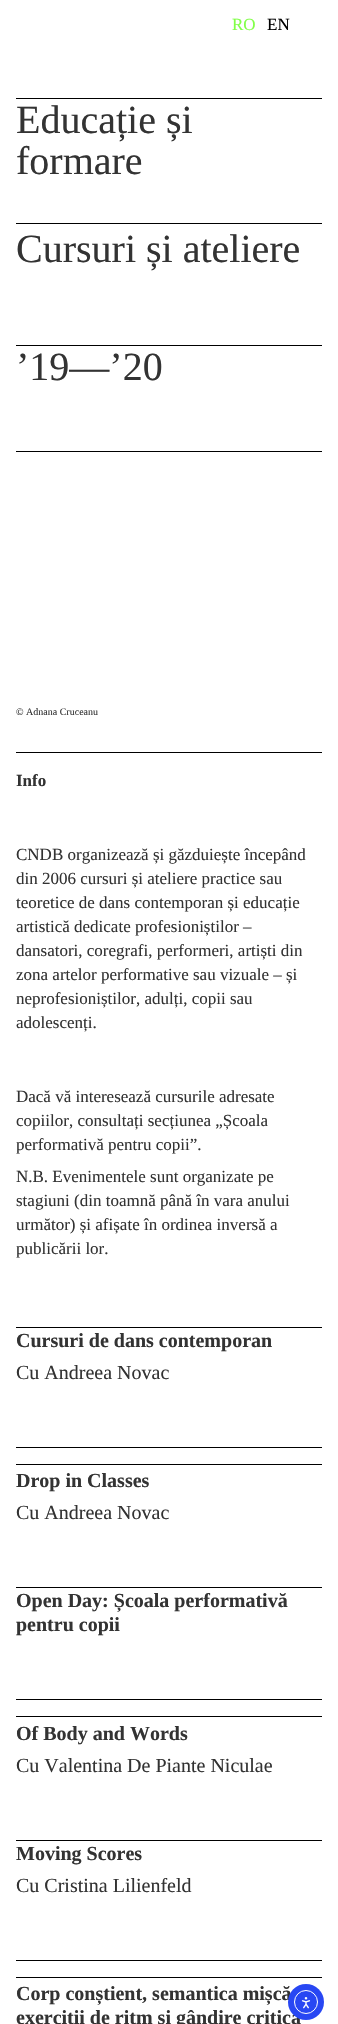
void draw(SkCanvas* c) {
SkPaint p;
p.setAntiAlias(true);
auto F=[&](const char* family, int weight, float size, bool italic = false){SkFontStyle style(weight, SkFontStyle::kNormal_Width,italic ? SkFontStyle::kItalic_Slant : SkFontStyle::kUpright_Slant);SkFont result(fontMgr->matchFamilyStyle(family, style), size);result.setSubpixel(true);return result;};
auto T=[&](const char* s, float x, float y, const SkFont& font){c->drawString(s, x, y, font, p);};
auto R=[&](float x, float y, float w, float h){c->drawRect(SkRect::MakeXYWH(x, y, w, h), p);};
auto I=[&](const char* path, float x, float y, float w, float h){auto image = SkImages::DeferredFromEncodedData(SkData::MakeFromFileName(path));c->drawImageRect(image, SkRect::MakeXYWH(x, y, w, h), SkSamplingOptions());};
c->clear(0xffffffff);
auto f1 = F("Liberation Serif",400,17);
p.setColor(0xff82ff48);
T("RO",232,30,f1);
p.setColor(0xff000000);
T("EN",267,30,f1);
R(16,98,306,1);
R(16,223,306,1);
auto f2 = F("Liberation Serif",400,40);
p.setColor(0xff333333);
T("Educație și",16,133,f2);
T("formare",16,174,f2);
p.setColor(0xff000000);
R(16,451,306,1);
p.setColor(0xff333333);
T("Cursuri și ateliere",16,262,f2);
p.setColor(0xff000000);
R(16,345,306,1);
p.setColor(0xff333333);
T("’19—’20",16,380,f2);
auto f3 = F("Liberation Serif",400,10);
T("© Adnana Cruceanu",16,715,f3);
p.setColor(0xff000000);
R(16,752,306,1);
auto f4 = F("Liberation Serif",700,17);
p.setColor(0xff333333);
T("Info",16,786,f4);
T("CNDB organizează și găzduiește începând",16,860,f1);
T("din 2006 cursuri și ateliere practice sau",16,884,f1);
T("teoretice de dans contemporan și educație",16,908,f1);
T("artistică dedicate profesioniștilor –",16,932,f1);
T("dansatori, coregrafi, performeri, artiști din",16,956,f1);
T("zona artelor performative sau vizuale – și",16,980,f1);
T("neprofesioniștilor, adulți, copii sau",16,1004,f1);
T("adolescenți.",16,1028,f1);
T("Dacă vă interesează cursurile adresate",16,1102,f1);
T("copiilor, consultați secțiunea „Școala",16,1126,f1);
T("performativă pentru copii”.",16,1150,f1);
T("N.B. Evenimentele sunt organizate pe",16,1182,f1);
T("stagiuni (din toamnă până în vara anului",16,1206,f1);
T("următor) și afișate în ordinea inversă a",16,1230,f1);
T("publicării lor.",16,1254,f1);
p.setColor(0xff000000);
R(16,1327,306,1);
auto f5 = F("Liberation Serif",700,20);
p.setColor(0xff333333);
T("Cursuri de dans contemporan",16,1347,f5);
auto f6 = F("Liberation Serif",400,20);
T("Cu Andreea Novac",16,1379,f6);
p.setColor(0xff000000);
R(16,1447,306,1);
R(16,1464,306,1);
p.setColor(0xff333333);
T("Drop in Classes",16,1487,f5);
T("Cu Andreea Novac",16,1519,f6);
p.setColor(0xff000000);
R(16,1587,306,1);
p.setColor(0xff333333);
T("Open Day: Școala performativă",16,1607,f5);
T("pentru copii",16,1631,f5);
p.setColor(0xff000000);
R(16,1699,306,1);
R(16,1716,306,1);
p.setColor(0xff333333);
T("Of Body and Words",16,1740,f5);
T("Cu Valentina De Piante Niculae",16,1772,f6);
p.setColor(0xff000000);
R(16,1840,306,1);
p.setColor(0xff333333);
T("Moving Scores",16,1860,f5);
T("Cu Cristina Lilienfeld",16,1892,f6);
p.setColor(0xff000000);
R(16,1960,306,1);
R(16,1977,306,1);
p.setColor(0xff333333);
T("Corp conștient, semantica mișcă",16,2000,f5);
T("exerciții de ritm și gândire critică",16,2024,f5);
p.setColor(0xff2847f3);
c->drawCircle(306,2002,18,p);
p.setStroke(true);
p.setStrokeWidth(1);
p.setColor(0xffffffff);
c->drawCircle(306,2002,11.5,p);
I("1.png",301,1997,10,12);
}
